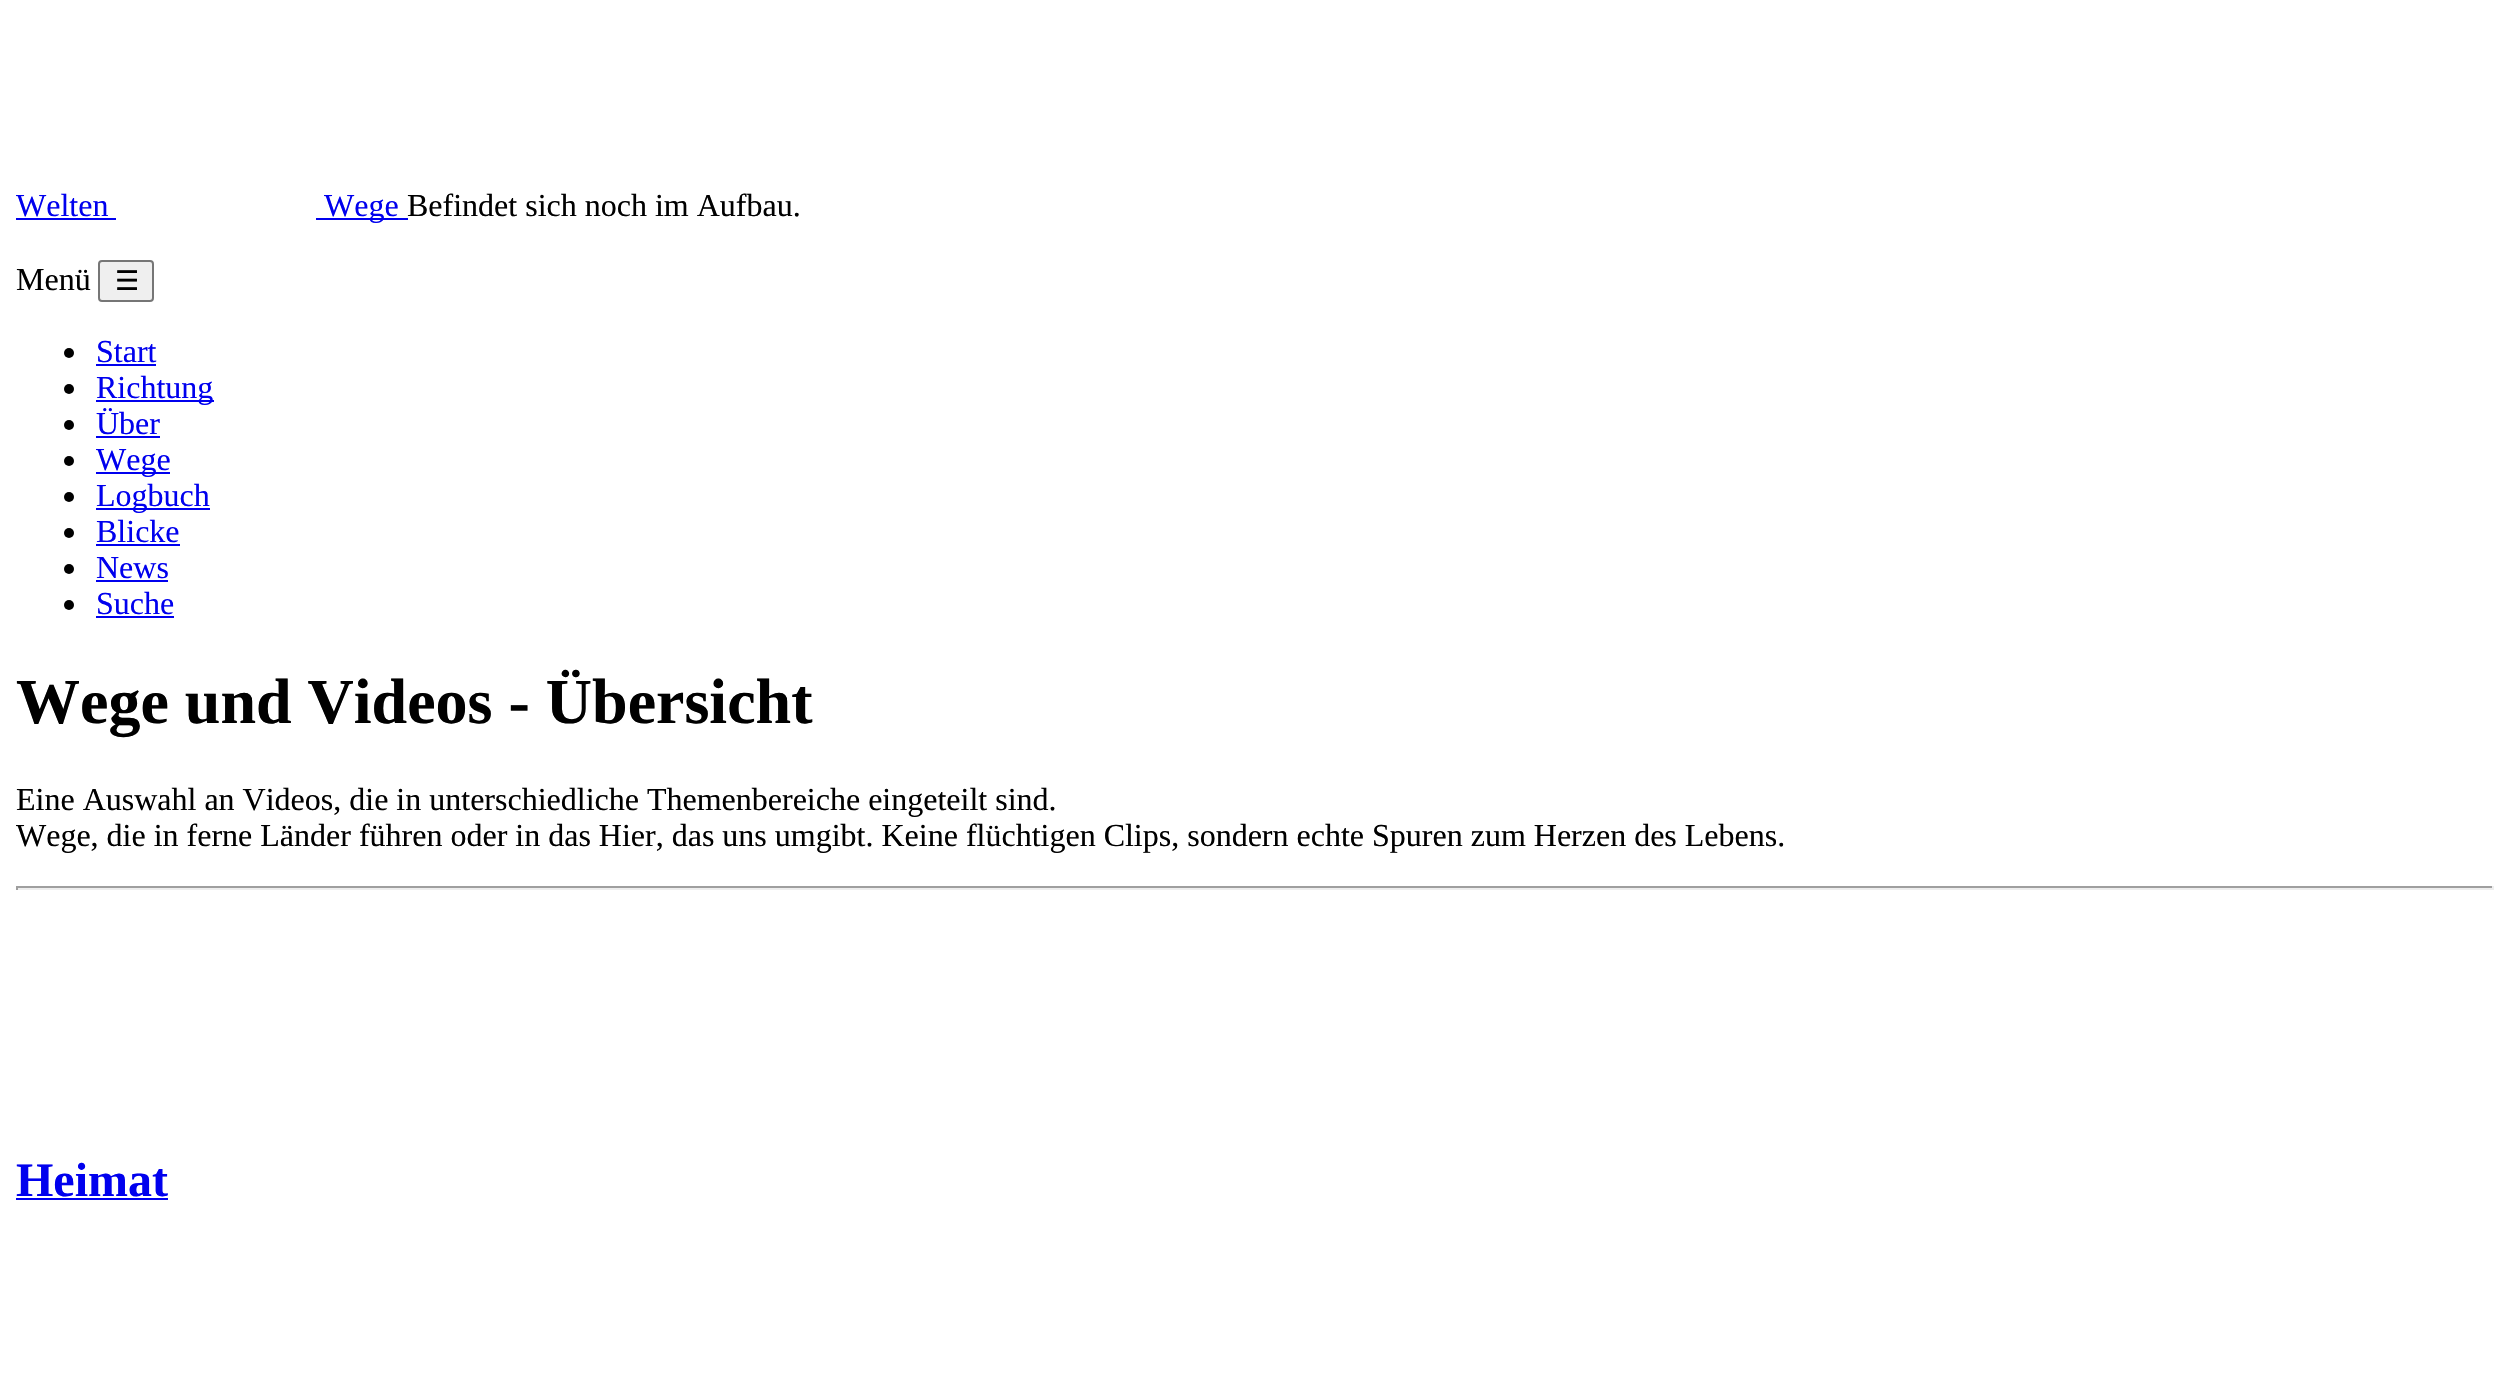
void draw(SkCanvas* c) {
SkPaint p;
p.setAntiAlias(true);
auto F=[&](const char* family, int weight, float size, bool italic = false){SkFontStyle style(weight, SkFontStyle::kNormal_Width,italic ? SkFontStyle::kItalic_Slant : SkFontStyle::kUpright_Slant);SkFont result(fontMgr->matchFamilyStyle(family, style), size);result.setSubpixel(true);return result;};
auto T=[&](const char* s, float x, float y, const SkFont& font){c->drawString(s, x, y, font, p);};
auto R=[&](float x, float y, float w, float h){c->drawRect(SkRect::MakeXYWH(x, y, w, h), p);};
c->clear(0xffffffff);
auto f1 = F("Liberation Serif",400,32);
p.setColor(0xff0000ee);
T("Welten",16,216,f1);
R(16,218,100,2);
R(316,218,92,2);
T("Wege",324,216,f1);
p.setColor(0xff000000);
T("Befindet sich noch im Aufbau.",407,216,f1);
T("Menü",16,290,f1);
p.setColor(0xffefefef);
c->drawRoundRect(SkRect::MakeXYWH(99,261,54,40),3,3,p);
p.setStroke(true);
p.setStrokeWidth(2);
p.setColor(0xff767676);
c->drawRoundRect(SkRect::MakeXYWH(99,261,54,40),3,3,p);
auto f2 = F("DejaVu Sans",400,27);
p.setStroke(false);
p.setColor(0xff000000);
T("☰",115,290,f2);
c->drawCircle(69,353,5,p);
p.setColor(0xff0000ee);
T("Start",96,362,f1);
R(96,364,60,2);
p.setColor(0xff000000);
c->drawCircle(69,389,5,p);
p.setColor(0xff0000ee);
R(96,400,118,2);
T("Richtung",96,398,f1);
p.setColor(0xff000000);
c->drawCircle(69,425,5,p);
p.setColor(0xff0000ee);
T("Über",96,434,f1);
R(96,436,64,2);
p.setColor(0xff000000);
c->drawCircle(69,461,5,p);
p.setColor(0xff0000ee);
R(96,472,74,2);
T("Wege",96,470,f1);
p.setColor(0xff000000);
c->drawCircle(69,497,5,p);
p.setColor(0xff0000ee);
R(96,508,114,2);
T("Logbuch",96,506,f1);
p.setColor(0xff000000);
c->drawCircle(69,533,5,p);
p.setColor(0xff0000ee);
T("Blicke",96,542,f1);
R(96,544,84,2);
p.setColor(0xff000000);
c->drawCircle(69,569,5,p);
p.setColor(0xff0000ee);
T("News",96,578,f1);
R(96,580,72,2);
p.setColor(0xff000000);
c->drawCircle(69,605,5,p);
p.setColor(0xff0000ee);
T("Suche",96,614,f1);
R(96,616,78,2);
auto f3 = F("Liberation Serif",700,64);
p.setColor(0xff000000);
T("Wege und Videos - Übersicht",16,723,f3);
T("Eine Auswahl an Videos, die in unterschiedliche Themenbereiche eingeteilt sind.",16,810,f1);
T("Wege, die in ferne Länder führen oder in das Hier, das uns umgibt. Keine flüchtigen Clips, sondern echte Spuren zum Herzen des Lebens.",16,846,f1);
p.setColor(0xff9f9f9f);
R(16,886,2478,2);
p.setColor(0xffeeeeee);
R(2492,886,2,4);
R(16,888,2478,2);
p.setColor(0xff9f9f9f);
R(16,886,2,4);
auto f4 = F("Liberation Serif",700,48);
p.setColor(0xff0000ee);
T("Heimat",16,1196,f4);
R(16,1198,152,2);
}
